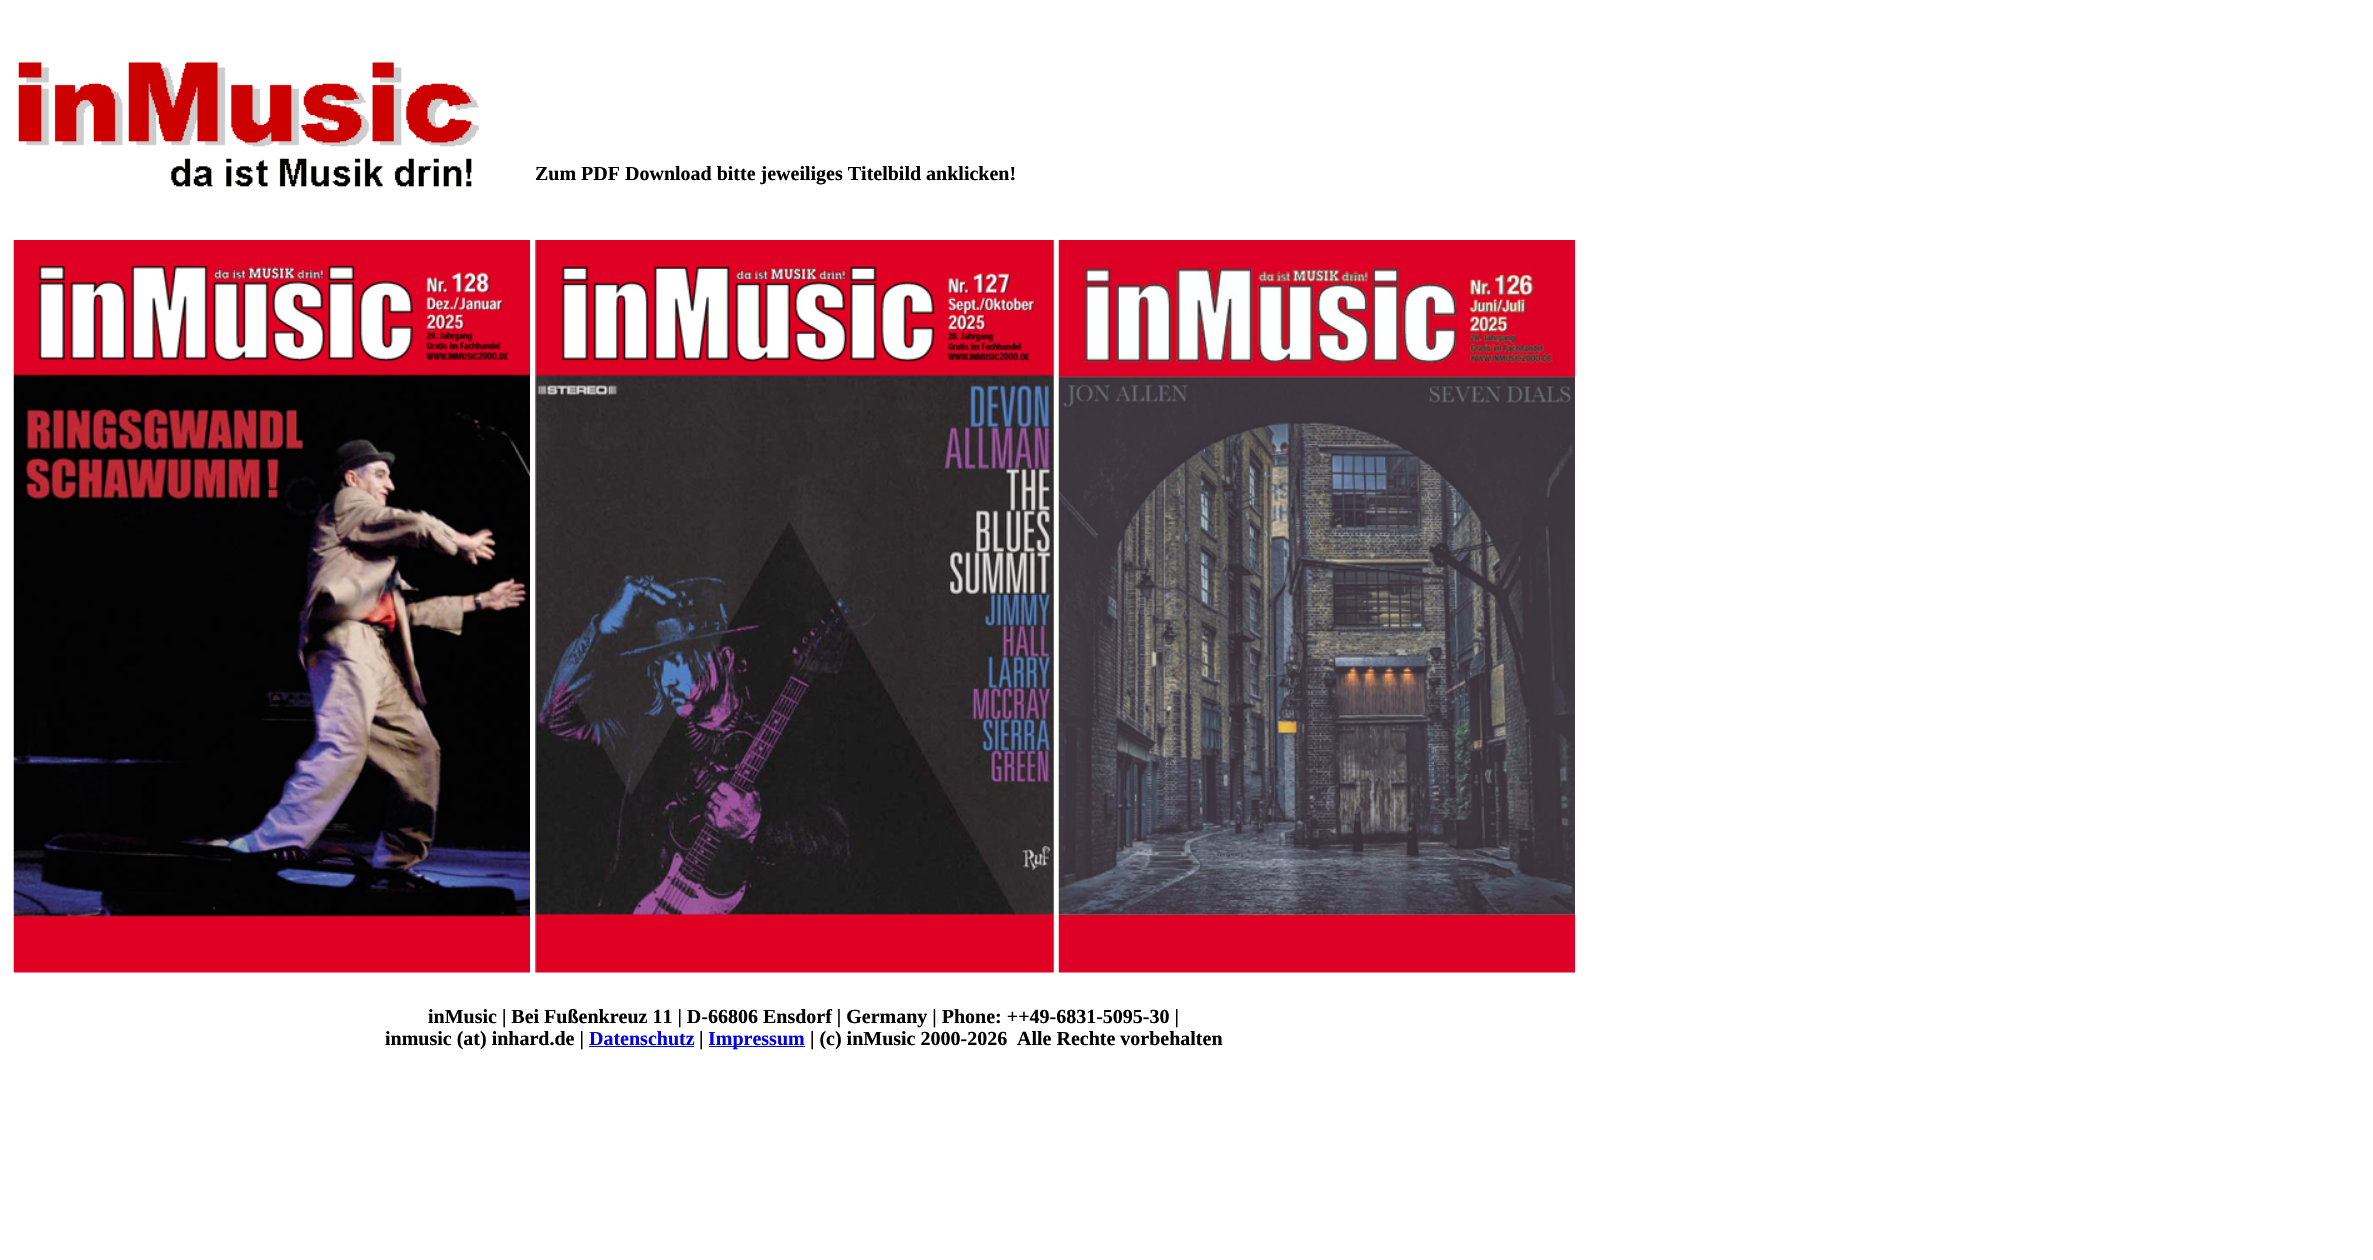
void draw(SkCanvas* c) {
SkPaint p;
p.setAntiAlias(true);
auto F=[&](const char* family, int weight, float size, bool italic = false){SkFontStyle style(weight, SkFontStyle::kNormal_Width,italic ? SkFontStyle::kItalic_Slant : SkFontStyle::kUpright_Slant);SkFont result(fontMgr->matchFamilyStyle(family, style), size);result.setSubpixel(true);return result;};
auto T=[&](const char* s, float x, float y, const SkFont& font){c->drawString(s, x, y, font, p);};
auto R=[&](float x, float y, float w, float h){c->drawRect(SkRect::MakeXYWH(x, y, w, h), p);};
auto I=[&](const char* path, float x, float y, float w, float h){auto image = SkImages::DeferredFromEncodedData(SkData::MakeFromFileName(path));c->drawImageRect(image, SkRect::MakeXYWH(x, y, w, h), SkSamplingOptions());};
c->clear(0xffffffff);
I("1.png",18,62,461,125);
auto f1 = F("Liberation Serif",700,20);
p.setColor(0xff000000);
T("Zum PDF Download bitte jeweiliges Titelbild anklicken!",535,180,f1);
I("2.png",13,240,517,733);
I("3.png",535,240,519,733);
I("4.png",1058,240,517,733);
T("inMusic | Bei Fußenkreuz 11 | D-66806 Ensdorf | Germany | Phone: ++49-6831-5095-30 |",428,1023,f1);
T("inmusic (at) inhard.de |",385,1045,f1);
p.setColor(0xff0000ee);
T("Datenschutz",589,1045,f1);
R(589,1046,105,1);
p.setColor(0xff000000);
T("|",699,1045,f1);
p.setColor(0xff0000ee);
R(709,1046,96,1);
T("Impressum",708,1045,f1);
p.setColor(0xff000000);
T("| (c) inMusic 2000-2026",810,1045,f1);
T("Alle Rechte vorbehalten",1017,1045,f1);
}
